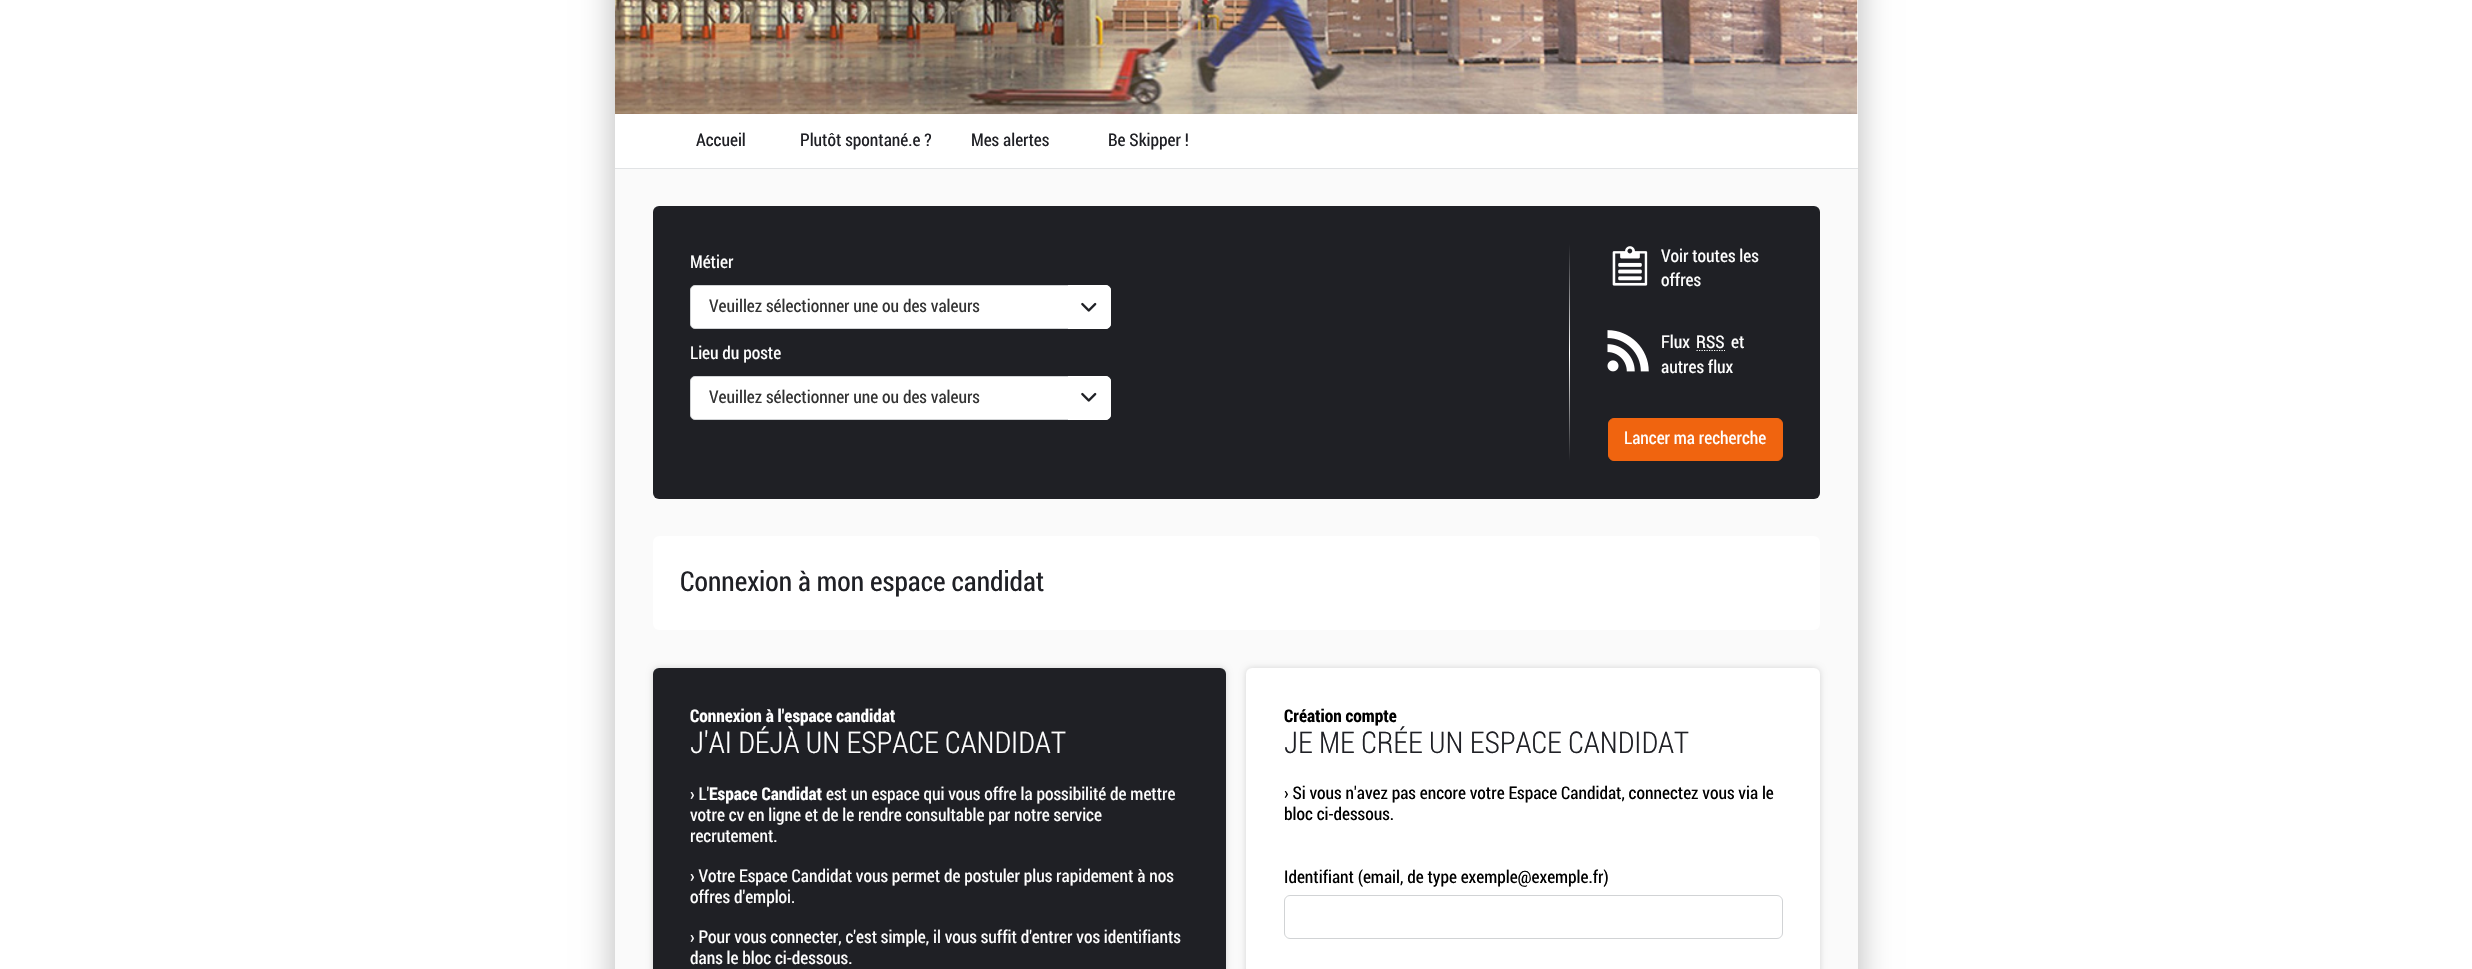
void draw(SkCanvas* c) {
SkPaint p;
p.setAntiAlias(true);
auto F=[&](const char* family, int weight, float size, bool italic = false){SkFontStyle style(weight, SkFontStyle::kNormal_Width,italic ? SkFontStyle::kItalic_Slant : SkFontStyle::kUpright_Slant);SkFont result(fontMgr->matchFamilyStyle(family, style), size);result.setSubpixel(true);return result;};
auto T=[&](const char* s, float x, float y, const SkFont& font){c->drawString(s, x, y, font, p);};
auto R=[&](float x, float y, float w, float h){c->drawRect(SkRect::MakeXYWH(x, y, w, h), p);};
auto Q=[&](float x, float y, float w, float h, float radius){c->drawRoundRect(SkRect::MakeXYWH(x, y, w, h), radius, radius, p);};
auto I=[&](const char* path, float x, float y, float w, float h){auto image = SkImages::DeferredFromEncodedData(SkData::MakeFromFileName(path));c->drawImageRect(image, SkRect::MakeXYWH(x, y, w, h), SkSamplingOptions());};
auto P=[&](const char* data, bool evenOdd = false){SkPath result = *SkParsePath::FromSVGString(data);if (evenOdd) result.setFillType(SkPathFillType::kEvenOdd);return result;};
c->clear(0xffffffff);
p.setColor(0x40000000);
p.setMaskFilter(SkMaskFilter::MakeBlur(kNormal_SkBlurStyle, 15.5));
c->drawRect(SkRect::MakeXYWH(613,-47,1247,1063),p);
p.setMaskFilter(nullptr);
p.setColor(0xffffffff);
R(615,0,1243,168);
I("1.png",615,0,1243,114);
p.setColor(0xffe1e3e5);
R(615,168,1243,1);
auto f1 = F("Roboto Condensed",400,17.5);
p.setColor(0xff1f2025);
T("Accueil",696,146,f1);
T("Plutôt spontané.e ?",800,146,f1);
T("Mes alertes",971,146,f1);
T("Be Skipper !",1108,146,f1);
p.setColor(0xfffafafa);
R(615,169,1243,800);
p.setColor(0xff1f2025);
Q(653,206,1167,293,6);
p.setColor(0xffffffff);
T("Métier",690,268,f1);
c->drawRoundRect(SkRect::MakeXYWH(690.5,285.5,420,43),4.5,4.5,p);
p.setStroke(true);
p.setStrokeWidth(1);
p.setColor(0xffd1d3d5);
c->drawRoundRect(SkRect::MakeXYWH(690.5,285.5,420,43),4.5,4.5,p);
p.setStroke(false);
p.setColor(0xff333333);
T("Veuillez sélectionner une ou des valeurs",709,312,f1);
p.setColor(0xffffffff);
c->drawPath(P("M1068 285h37c3.5 0 6 2.5 6 6v32c0 3.5-2.5 6-6 6h-37z"),p);
I("2.png",1081,302,16,10);
T("Lieu du poste",690,359,f1);
c->drawRoundRect(SkRect::MakeXYWH(690.5,376.5,420,43),4.5,4.5,p);
p.setStroke(true);
p.setColor(0xffd1d3d5);
c->drawRoundRect(SkRect::MakeXYWH(690.5,376.5,420,43),4.5,4.5,p);
p.setStroke(false);
p.setColor(0xff333333);
T("Veuillez sélectionner une ou des valeurs",709,403,f1);
p.setColor(0xffffffff);
c->drawPath(P("M1068 376h37c3.5 0 6 2.5 6 6v32c0 3.5-2.5 6-6 6h-37z"),p);
I("2.png",1081,392,16,10);
{
const SkColor colors[] = {0xff1f2025,0xffffffff};
const float stops[] = {0,1};
const SkPoint ends[] = {{1569,244}, {1569,353}};
p.setShader(SkGradientShader::MakeLinear(ends, colors, stops, 2, SkTileMode::kClamp));
p.setAlpha(255);
}
R(1569,244,1,109);
{
const SkColor colors[] = {0xffffffff,0xff1f2025};
const float stops[] = {0,1};
const SkPoint ends[] = {{1569,353}, {1569,461}};
p.setShader(SkGradientShader::MakeLinear(ends, colors, stops, 2, SkTileMode::kClamp));
p.setAlpha(255);
}
R(1569,353,1,108);
I("3.png",1612,246,36,40);
p.setShader(nullptr);
p.setColor(0xffffffff);
T("Voir toutes les",1661,262,f1);
T("offres",1661,286,f1);
I("4.png",1607,330,42,42);
T("Flux",1661,348,f1);
T("RSS",1696,348,f1);
p.setStroke(true);
p.setStrokeWidth(1.2);
p.setPathEffect(SkDashPathEffect::Make({{1.25f,1.25f}}, 0));
c->drawPath(P("M1696.5 350.5h28.5"),p);
p.setPathEffect(nullptr);
p.setStroke(false);
T("et",1731,348,f1);
T("autres flux",1661,373,f1);
p.setColor(0xfff0640f);
c->drawRoundRect(SkRect::MakeXYWH(1608.5,418.5,174,42),5.5,5.5,p);
p.setStroke(true);
p.setStrokeWidth(1);
c->drawRoundRect(SkRect::MakeXYWH(1608.5,418.5,174,42),5.5,5.5,p);
p.setStroke(false);
p.setColor(0xffffffff);
T("Lancer ma recherche",1624,444,f1);
Q(653,536,1167,94,6);
auto f2 = F("Roboto Condensed",400,27.5);
p.setColor(0xff1f2025);
T("Connexion à mon espace candidat",680,591,f2);
p.setColor(0x26000000);
p.setMaskFilter(SkMaskFilter::MakeBlur(kNormal_SkBlurStyle, 3));
c->drawRoundRect(SkRect::MakeXYWH(653,668,573,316),6,6,p);
p.setMaskFilter(nullptr);
p.setColor(0xff1f2025);
Q(653,668,573,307,6);
auto f3 = F("Roboto Condensed",700,17.5);
p.setColor(0xffffffff);
T("Connexion à l'espace candidat",690,722,f3);
auto f4 = F("Roboto Condensed",300,30);
T("J'AI DÉJÀ UN ESPACE CANDIDAT",690,753,f4);
T("› L'",690,800,f1);
T("Espace Candidat",709,800,f3);
T("est un espace qui vous offre la possibilité de mettre",826,800,f1);
T("votre cv en ligne et de le rendre consultable par notre service",690,821,f1);
T("recrutement.",690,842,f1);
T("› Votre Espace Candidat vous permet de postuler plus rapidement à nos",690,882,f1);
T("offres d'emploi.",690,903,f1);
T("› Pour vous connecter, c'est simple, il vous suffit d'entrer vos identifiants",690,943,f1);
T("dans le bloc ci-dessous.",690,964,f1);
p.setColor(0x26000000);
p.setMaskFilter(SkMaskFilter::MakeBlur(kNormal_SkBlurStyle, 3));
c->drawRoundRect(SkRect::MakeXYWH(1246,668,574,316),6,6,p);
p.setMaskFilter(nullptr);
p.setColor(0xffffffff);
Q(1246,668,574,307,6);
p.setColor(0xff000000);
T("Création compte",1284,722,f3);
T("Identifiant (email, de type exemple@exemple.fr)",1284,883,f1);
p.setStroke(true);
p.setColor(0xffd1d3d5);
c->drawRoundRect(SkRect::MakeXYWH(1284.5,895.5,498,43),5.5,5.5,p);
p.setStroke(false);
p.setColor(0xff1f2025);
T("JE ME CRÉE UN ESPACE CANDIDAT",1284,753,f4);
p.setColor(0xff000000);
T("› Si vous n'avez pas encore votre Espace Candidat, connectez vous via le",1284,799,f1);
T("bloc ci-dessous.",1284,820,f1);
}
